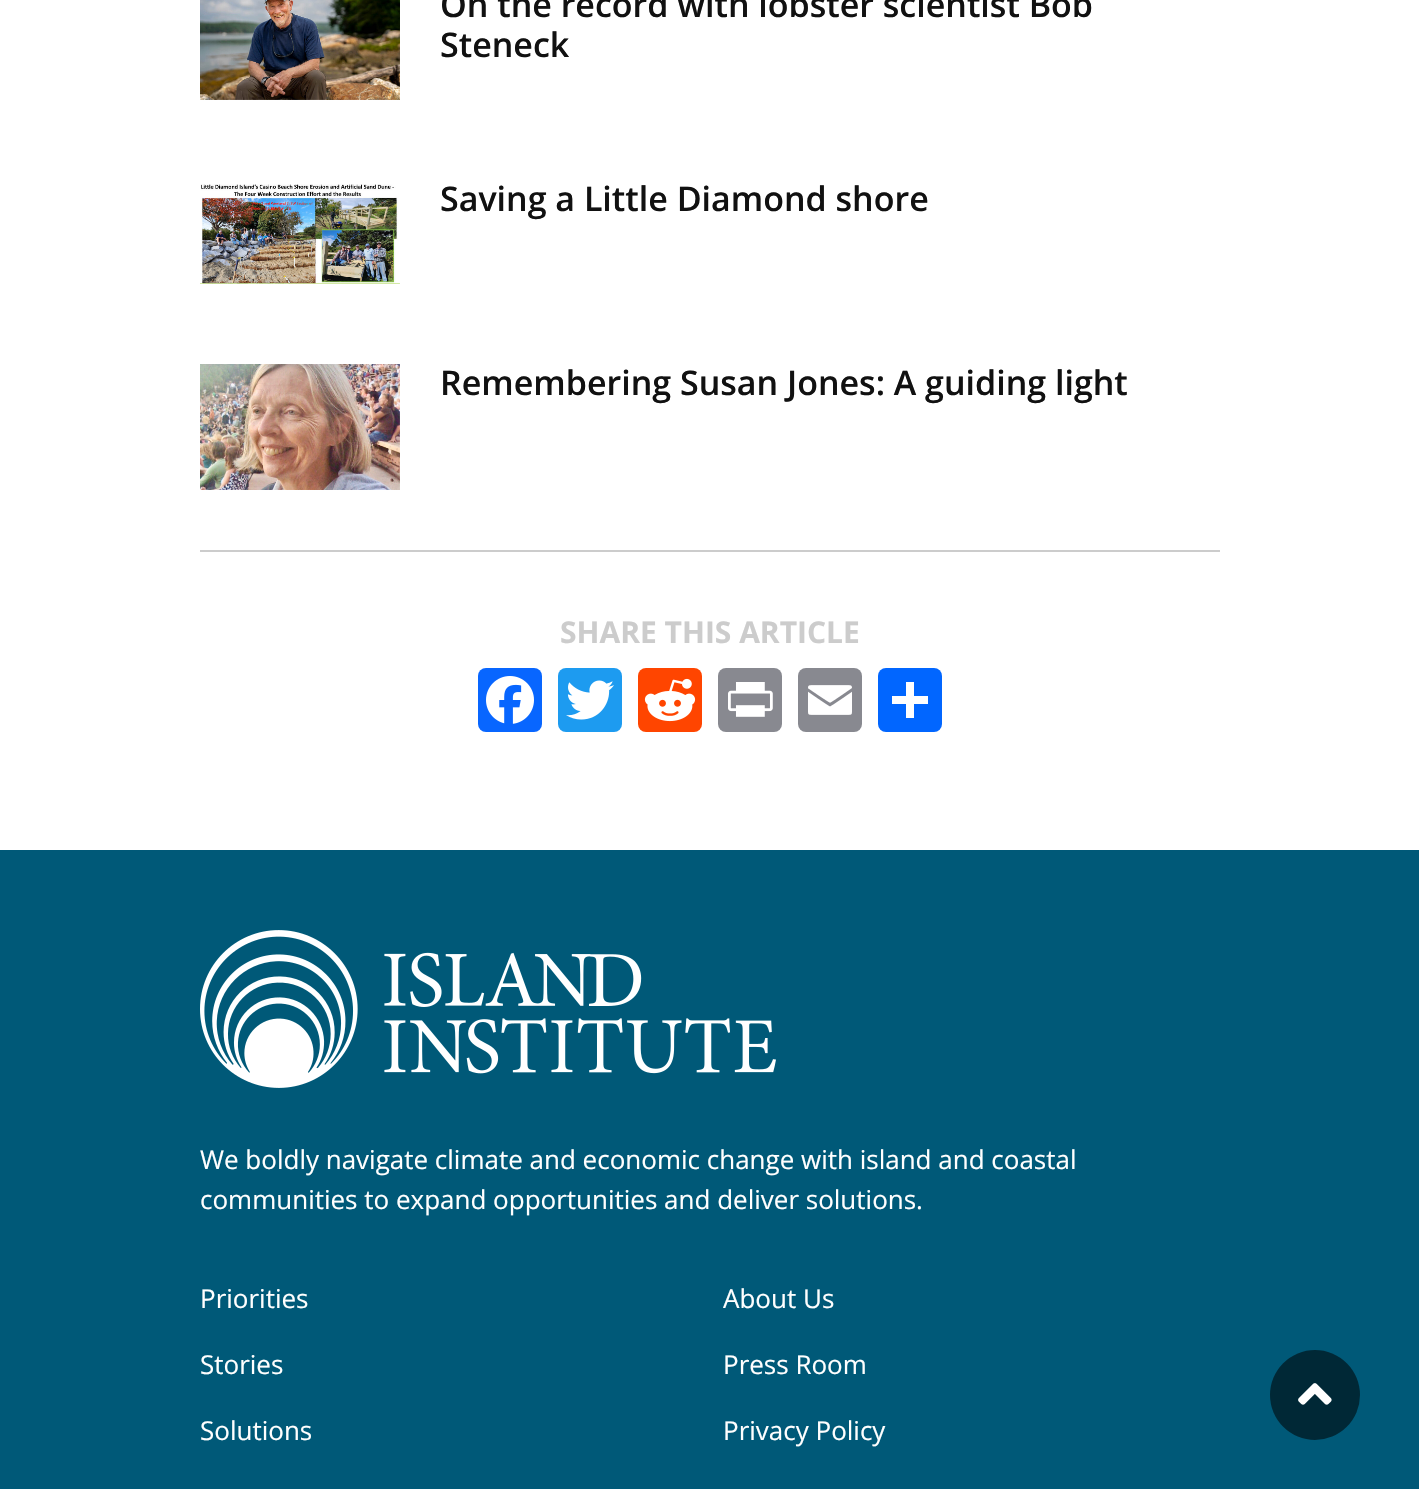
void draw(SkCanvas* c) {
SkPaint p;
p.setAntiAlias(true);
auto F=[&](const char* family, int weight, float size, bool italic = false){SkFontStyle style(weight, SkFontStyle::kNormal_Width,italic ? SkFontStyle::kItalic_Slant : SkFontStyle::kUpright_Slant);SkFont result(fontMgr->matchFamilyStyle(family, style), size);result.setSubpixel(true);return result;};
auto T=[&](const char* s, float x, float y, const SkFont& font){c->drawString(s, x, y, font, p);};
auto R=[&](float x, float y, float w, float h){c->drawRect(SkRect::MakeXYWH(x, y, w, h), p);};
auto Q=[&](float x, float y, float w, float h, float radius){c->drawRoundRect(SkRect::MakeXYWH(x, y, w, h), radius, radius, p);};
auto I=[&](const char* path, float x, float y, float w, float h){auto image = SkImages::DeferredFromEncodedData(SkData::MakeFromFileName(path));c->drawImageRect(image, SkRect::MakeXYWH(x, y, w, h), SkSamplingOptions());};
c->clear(0xffffffff);
p.setColor(0xffcccccc);
R(200,550,1020,2);
I("1.png",200,0,200,100);
auto f1 = F("Open Sans",600,34);
p.setColor(0xff111111);
T("On the record with lobster scientist Bob",440,17,f1);
T("Steneck",440,57,f1);
I("2.png",200,184,200,100);
T("Saving a Little Diamond shore",440,211,f1);
I("3.png",200,364,200,126);
T("Remembering Susan Jones: A guiding light",440,395,f1);
auto f2 = F("Open Sans",700,30);
p.setColor(0xffcccccc);
T("SHARE THIS ARTICLE",560,643,f2);
p.setColor(0xff0866ff);
Q(478,668,64,64,8);
I("4.png",486,676,48,48);
p.setColor(0xff1d9bf0);
Q(558,668,64,64,8);
I("5.png",566,680,48,40);
p.setColor(0xffff4500);
Q(638,668,64,64,8);
I("6.png",644,678,52,44);
p.setColor(0xff888990);
Q(718,668,64,64,8);
I("7.png",728,682,45,35);
Q(798,668,64,64,8);
I("8.png",808,685,44,30);
p.setColor(0xff0166ff);
Q(878,668,64,64,8);
p.setColor(0xffffffff);
R(906,682,8,36);
R(892,696,36,8);
p.setColor(0xff005978);
R(0,850,1419,639);
I("9.png",200,930,576,158);
auto f3 = F("Open Sans",400,26);
p.setColor(0xffffffff);
T("We boldly navigate climate and economic change with island and coastal",200,1169,f3);
T("communities to expand opportunities and deliver solutions.",200,1209,f3);
T("Priorities",200,1308,f3);
T("About Us",723,1308,f3);
T("Stories",200,1374,f3);
T("Press Room",723,1374,f3);
T("Solutions",200,1440,f3);
T("Privacy Policy",723,1440,f3);
p.setColor(0xff002836);
c->drawCircle(1315,1395,45,p);
I("10.png",1298,1383,34,22);
}
